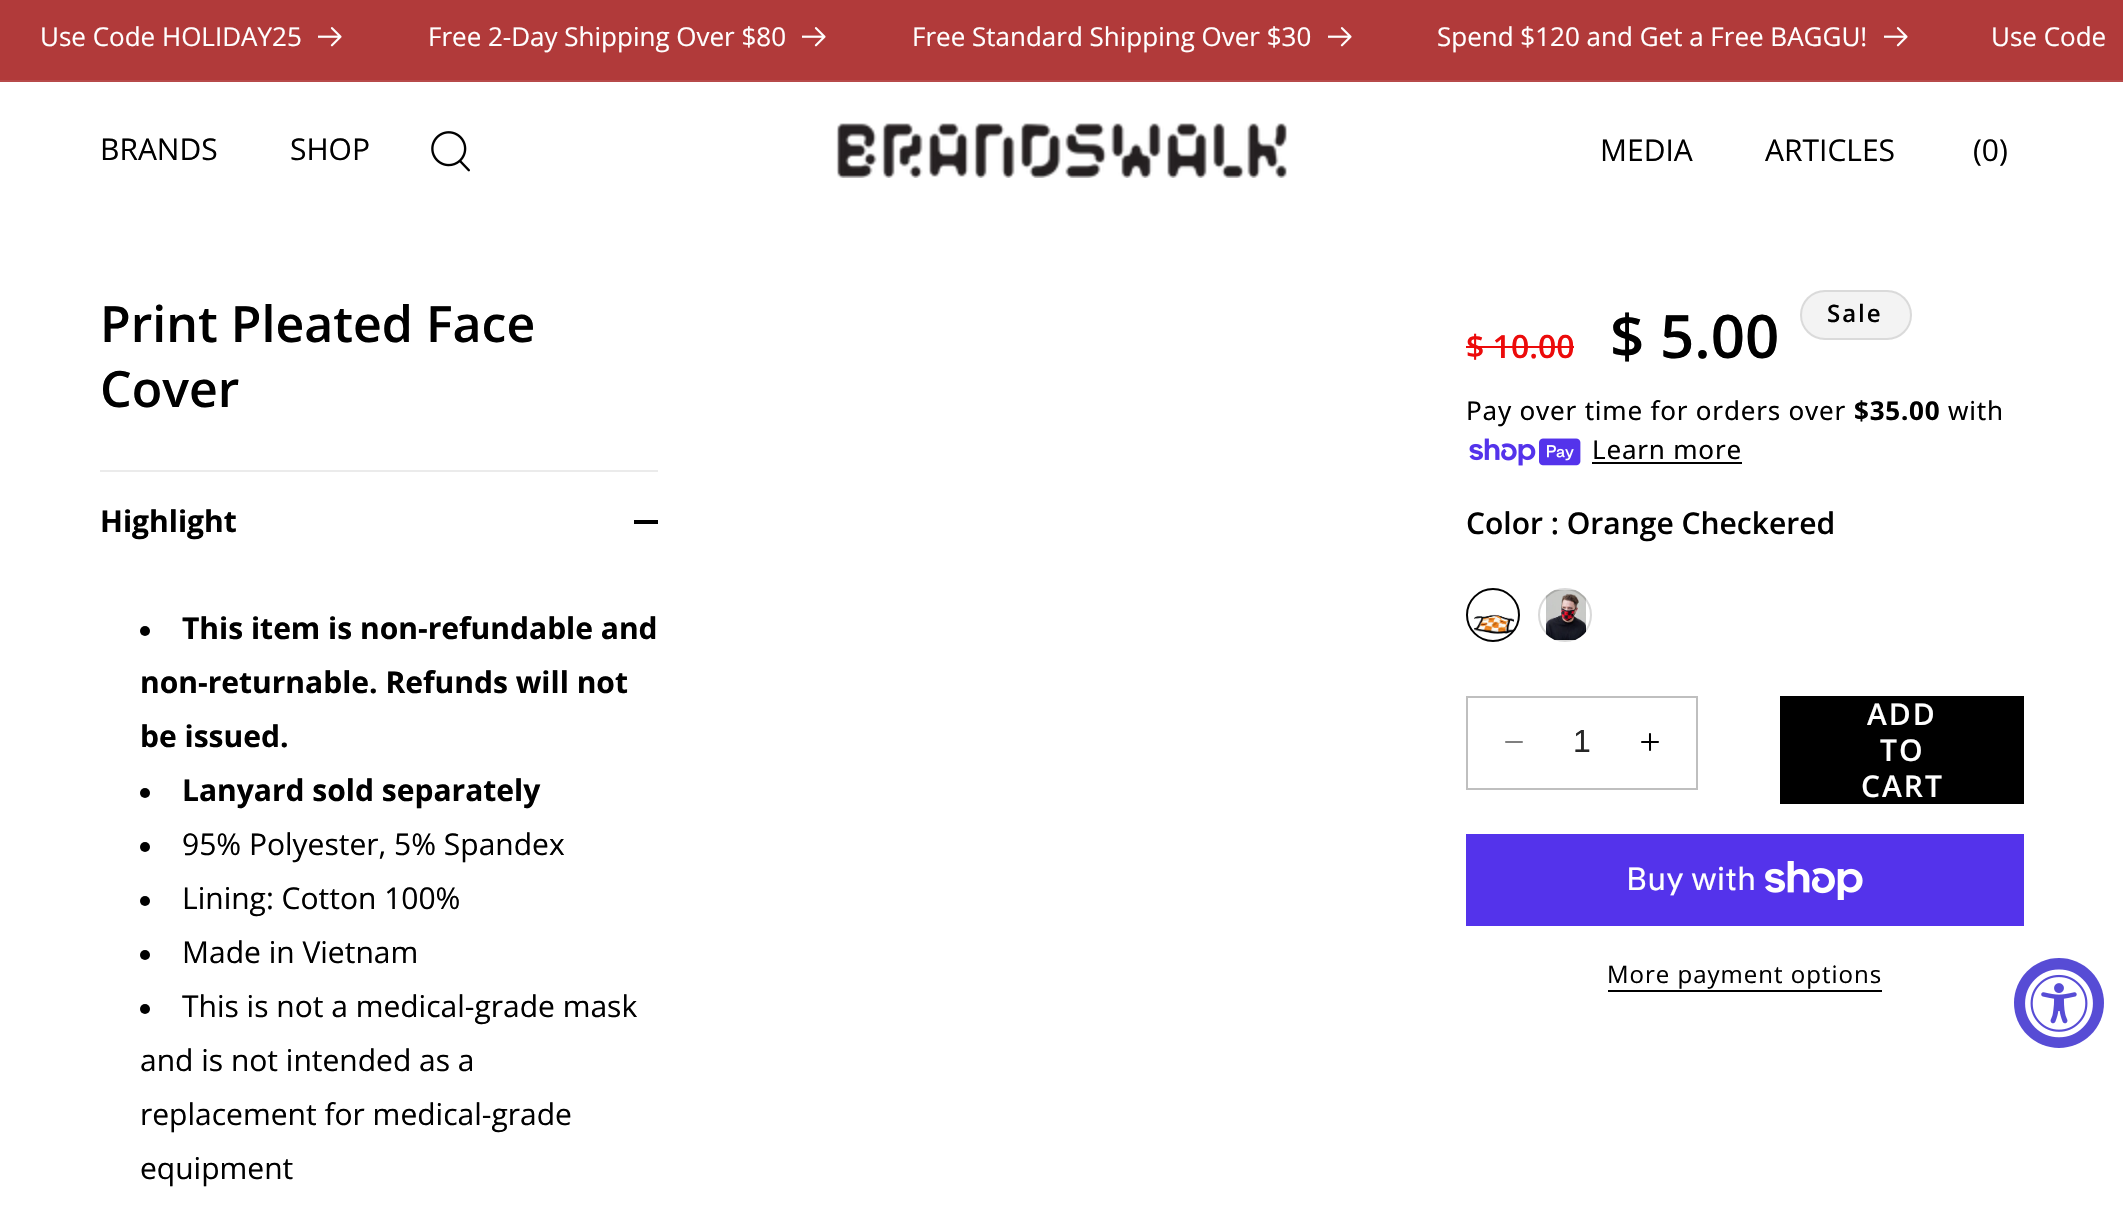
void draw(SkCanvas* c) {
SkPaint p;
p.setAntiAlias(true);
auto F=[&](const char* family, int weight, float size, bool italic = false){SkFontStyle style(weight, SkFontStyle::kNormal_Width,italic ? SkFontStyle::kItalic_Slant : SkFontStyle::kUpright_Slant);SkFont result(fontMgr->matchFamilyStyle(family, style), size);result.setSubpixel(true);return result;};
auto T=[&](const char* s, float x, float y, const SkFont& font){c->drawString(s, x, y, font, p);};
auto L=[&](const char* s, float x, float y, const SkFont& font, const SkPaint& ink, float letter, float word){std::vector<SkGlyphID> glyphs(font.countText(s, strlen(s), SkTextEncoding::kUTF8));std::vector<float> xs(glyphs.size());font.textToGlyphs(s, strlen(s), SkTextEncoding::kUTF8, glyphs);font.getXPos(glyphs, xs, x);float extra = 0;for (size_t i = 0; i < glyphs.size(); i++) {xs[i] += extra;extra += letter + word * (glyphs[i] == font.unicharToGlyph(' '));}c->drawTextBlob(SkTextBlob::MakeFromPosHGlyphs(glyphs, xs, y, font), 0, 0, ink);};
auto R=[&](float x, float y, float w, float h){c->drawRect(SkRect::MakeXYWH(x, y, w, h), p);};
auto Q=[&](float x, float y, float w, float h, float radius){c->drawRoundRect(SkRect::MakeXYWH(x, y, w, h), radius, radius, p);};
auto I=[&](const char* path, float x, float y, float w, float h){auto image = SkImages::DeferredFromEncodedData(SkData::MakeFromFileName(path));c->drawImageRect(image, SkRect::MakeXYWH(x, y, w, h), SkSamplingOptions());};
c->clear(0xffffffff);
p.setColor(0xffb13a3a);
R(0,0,2123,80);
p.setColor(0xffb74a4a);
R(0,80,2123,2);
auto f1 = F("Open Sans",400,26);
p.setColor(0xffffffff);
T("Use Code HOLIDAY25",40,46,f1);
I("1.png",318,27,24,20);
T("Free 2-Day Shipping Over $80",428,46,f1);
I("1.png",802,27,24,20);
T("Free Standard Shipping Over $30",912,46,f1);
I("1.png",1328,27,24,20);
T("Spend $120 and Get a Free BAGGU!",1437,46,f1);
I("1.png",1884,27,24,20);
T("Use Code",1991,46,f1);
auto f2 = F("Open Sans",400,30);
p.setColor(0xff000000);
T("BRANDS",100,160,f2);
T("SHOP",290,160,f2);
I("2.png",431,131,39,41);
I("3.png",836,123,451,55);
T("MEDIA",1600,161,f2);
T("ARTICLES",1765,161,f2);
T("(0)",1973,161,f2);
auto f3 = F("Open Sans",600,50);
T("Print Pleated Face",100,342,f3);
T("Cover",100,407,f3);
p.setColor(0xffebebeb);
R(100,470,558,2);
auto f4 = F("Open Sans",700,30);
p.setColor(0xff000000);
T("Highlight",100,532,f4);
R(634,520,24,4);
c->drawCircle(145,631,5,p);
T("This item is non-refundable and",182,639,f4);
T("non-returnable. Refunds will not",140,693,f4);
T("be issued.",140,747,f4);
c->drawCircle(145,793,5,p);
T("Lanyard sold separately",182,801,f4);
c->drawCircle(145,847,5,p);
T("95% Polyester, 5% Spandex",182,855,f2);
c->drawCircle(145,901,5,p);
T("Lining: Cotton 100%",182,909,f2);
c->drawCircle(145,955,5,p);
T("Made in Vietnam",182,963,f2);
c->drawCircle(145,1009,5,p);
T("This is not a medical-grade mask",182,1017,f2);
T("and is not intended as a",140,1071,f2);
T("replacement for medical-grade",140,1125,f2);
T("equipment",140,1179,f2);
auto f5 = F("Open Sans",600,32);
p.setColor(0xffec0b0b);
T("$ 10.00",1466,358,f5);
R(1466,346,108,2);
auto f6 = F("Open Sans",600,60);
p.setColor(0xff000000);
T("$ 5.00",1610,358,f6);
p.setColor(0xfff3f3f3);
Q(1800,290,112,50,25);
p.setStroke(true);
p.setStrokeWidth(2);
p.setColor(0x1a000000);
c->drawRoundRect(SkRect::MakeXYWH(1801,291,110,48),24,24,p);
auto f7 = F("Open Sans",600,24);
p.setStroke(false);
p.setColor(0xff000000);
L("Sale",1827,322,f7,p,2,0);
auto f8 = F("Noto Sans",400,26);
L("Pay over time for orders over",1466,420,f8,p,.8,0);
auto f9 = F("Noto Sans",700,26);
L("$35.00",1854,420,f9,p,.8,0);
L("with",1948,420,f8,p,.8,0);
I("4.png",1469,438,112,28);
L("Learn more",1592,459,f8,p,.8,0);
R(1592,462,150,2);
auto f10 = F("Open Sans",600,30);
T("Color : Orange Checkered",1466,534,f10);
I("5.png",1474,614,40,21);
p.setStroke(true);
c->drawCircle(1493,615,26,p);
I("6.png",1546,590,40,50);
p.setColor(0x26000000);
c->drawCircle(1565,615,26,p);
I("7.png",1505,741,18,2);
I("8.png",1641,733,18,18);
p.setColor(0xffbfbfbf);
c->drawRect(SkRect::MakeXYWH(1467,697,230,92),p);
auto f11 = F("Liberation Sans",400,32);
p.setStroke(false);
p.setColor(0xff262626);
T("1",1573,752,f11);
p.setColor(0xff000000);
R(1780,696,244,108);
p.setColor(0xffffffff);
L("ADD",1867,725,f10,p,2,0);
L("TO",1880,761,f10,p,2,0);
L("CART",1861,797,f10,p,2,0);
p.setColor(0xff5433eb);
R(1466,834,558,92);
auto f12 = F("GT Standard",400,32);
p.setColor(0xffffffff);
T("Buy with",1626,890,f12);
I("9.png",1765,861,98,39);
auto f13 = F("Open Sans",400,24);
p.setColor(0xff000000);
L("More payment options",1607,983,f13,p,1,0);
R(1608,990,274,2);
p.setColor(0xff574cd5);
c->drawCircle(2059,1003,45,p);
I("10.png",2025,969,68,69);
}
